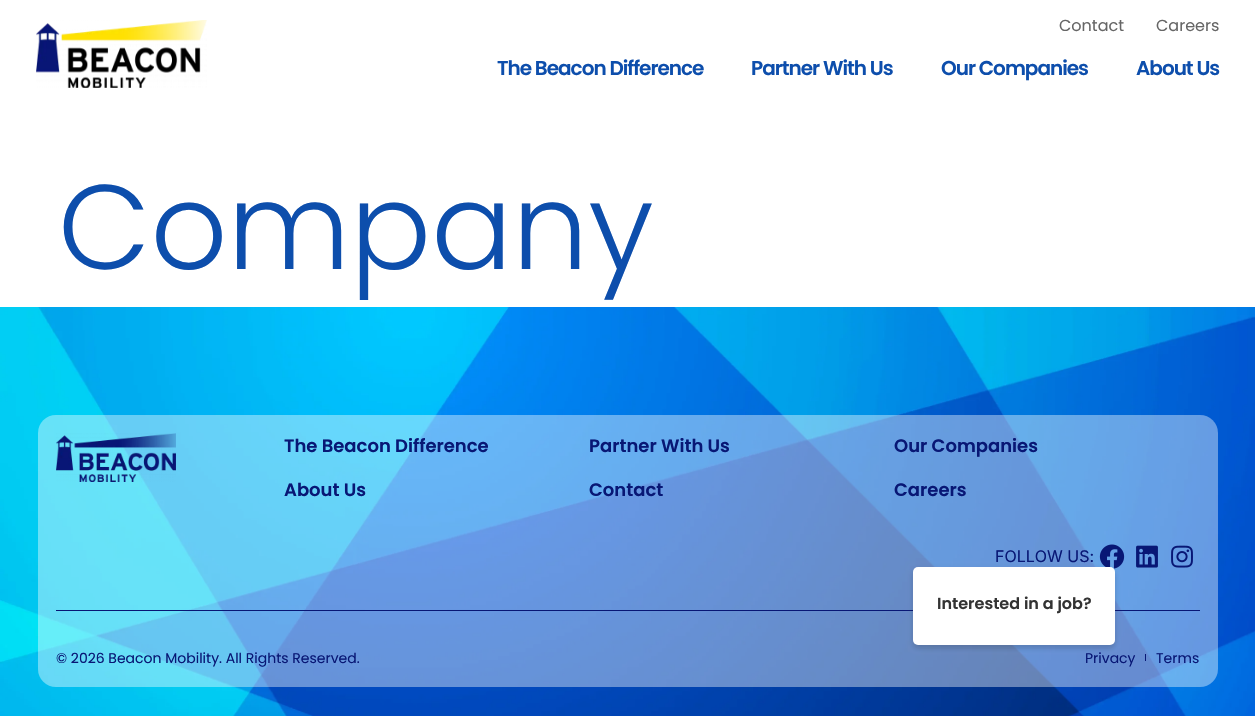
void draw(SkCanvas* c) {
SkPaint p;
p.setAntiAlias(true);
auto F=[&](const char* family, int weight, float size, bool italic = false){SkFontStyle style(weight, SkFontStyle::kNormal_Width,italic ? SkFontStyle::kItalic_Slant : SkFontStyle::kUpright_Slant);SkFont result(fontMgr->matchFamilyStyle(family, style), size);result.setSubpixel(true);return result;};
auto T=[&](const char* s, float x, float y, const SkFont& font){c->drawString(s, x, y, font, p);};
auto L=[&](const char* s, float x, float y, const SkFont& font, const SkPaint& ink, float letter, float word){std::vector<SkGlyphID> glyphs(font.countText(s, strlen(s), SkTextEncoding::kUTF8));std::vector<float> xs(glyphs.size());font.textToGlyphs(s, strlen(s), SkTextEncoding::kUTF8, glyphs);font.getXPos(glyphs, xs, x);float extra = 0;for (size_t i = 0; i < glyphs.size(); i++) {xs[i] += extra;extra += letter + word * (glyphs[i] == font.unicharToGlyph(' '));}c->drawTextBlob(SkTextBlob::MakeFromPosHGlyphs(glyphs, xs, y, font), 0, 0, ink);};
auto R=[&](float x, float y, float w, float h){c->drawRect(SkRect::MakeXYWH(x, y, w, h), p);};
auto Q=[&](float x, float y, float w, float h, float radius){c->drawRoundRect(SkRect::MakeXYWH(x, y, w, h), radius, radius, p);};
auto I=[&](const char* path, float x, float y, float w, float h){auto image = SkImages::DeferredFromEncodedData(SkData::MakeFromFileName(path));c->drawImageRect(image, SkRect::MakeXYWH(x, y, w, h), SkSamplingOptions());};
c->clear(0xffffffff);
I("1.png",36,20,171,68);
auto f1 = F("Poppins",400,16);
p.setColor(0xff666666);
T("Contact",1059,31,f1);
T("Careers",1156,31,f1);
auto f2 = F("Poppins",600,20);
p.setColor(0xff0d4eac);
L("The Beacon Difference",497,75,f2,p,-1,0);
L("Partner With Us",751,75,f2,p,-1,0);
L("Our Companies",941,75,f2,p,-1,0);
L("About Us",1136,75,f2,p,-1,0);
auto f3 = F("Poppins",300,120);
T("Company",58,269,f3);
I("2.png",0,307,1255,409);
p.setColor(0x66ffffff);
Q(38,415,1180,272,18);
I("3.png",56,433,120,49);
auto f4 = F("Poppins",600,18);
p.setColor(0xff081775);
T("The Beacon Difference",284,452,f4);
T("About Us",284,496,f4);
T("Partner With Us",589,452,f4);
T("Contact",589,496,f4);
T("Our Companies",894,452,f4);
T("Careers",894,496,f4);
auto f5 = F("Inter",400,16);
T("FOLLOW US:",995,562,f5);
I("4.png",1099,544,26,25);
I("5.png",1136,545,22,23);
I("6.png",1171,545,22,23);
R(56,610,1144,1);
auto f6 = F("Poppins",400,14);
T("© 2026 Beacon Mobility. All Rights Reserved.",56,663,f6);
T("Privacy",1085,663,f6);
R(1145,654,1,7);
T("Terms",1156,663,f6);
p.setColor(0x1a1e1e1f);
p.setMaskFilter(SkMaskFilter::MakeBlur(kNormal_SkBlurStyle, 3));
c->drawRoundRect(SkRect::MakeXYWH(913,569,202,78),5,5,p);
p.setMaskFilter(nullptr);
p.setMaskFilter(SkMaskFilter::MakeBlur(kNormal_SkBlurStyle, 2));
c->drawRoundRect(SkRect::MakeXYWH(913,571,202,78),5,5,p);
p.setMaskFilter(nullptr);
p.setColor(0xffffffff);
Q(913,567,202,78,5);
auto f7 = F("Poppins",600,16);
p.setColor(0xff333333);
T("Interested in a job?",937,609,f7);
}
